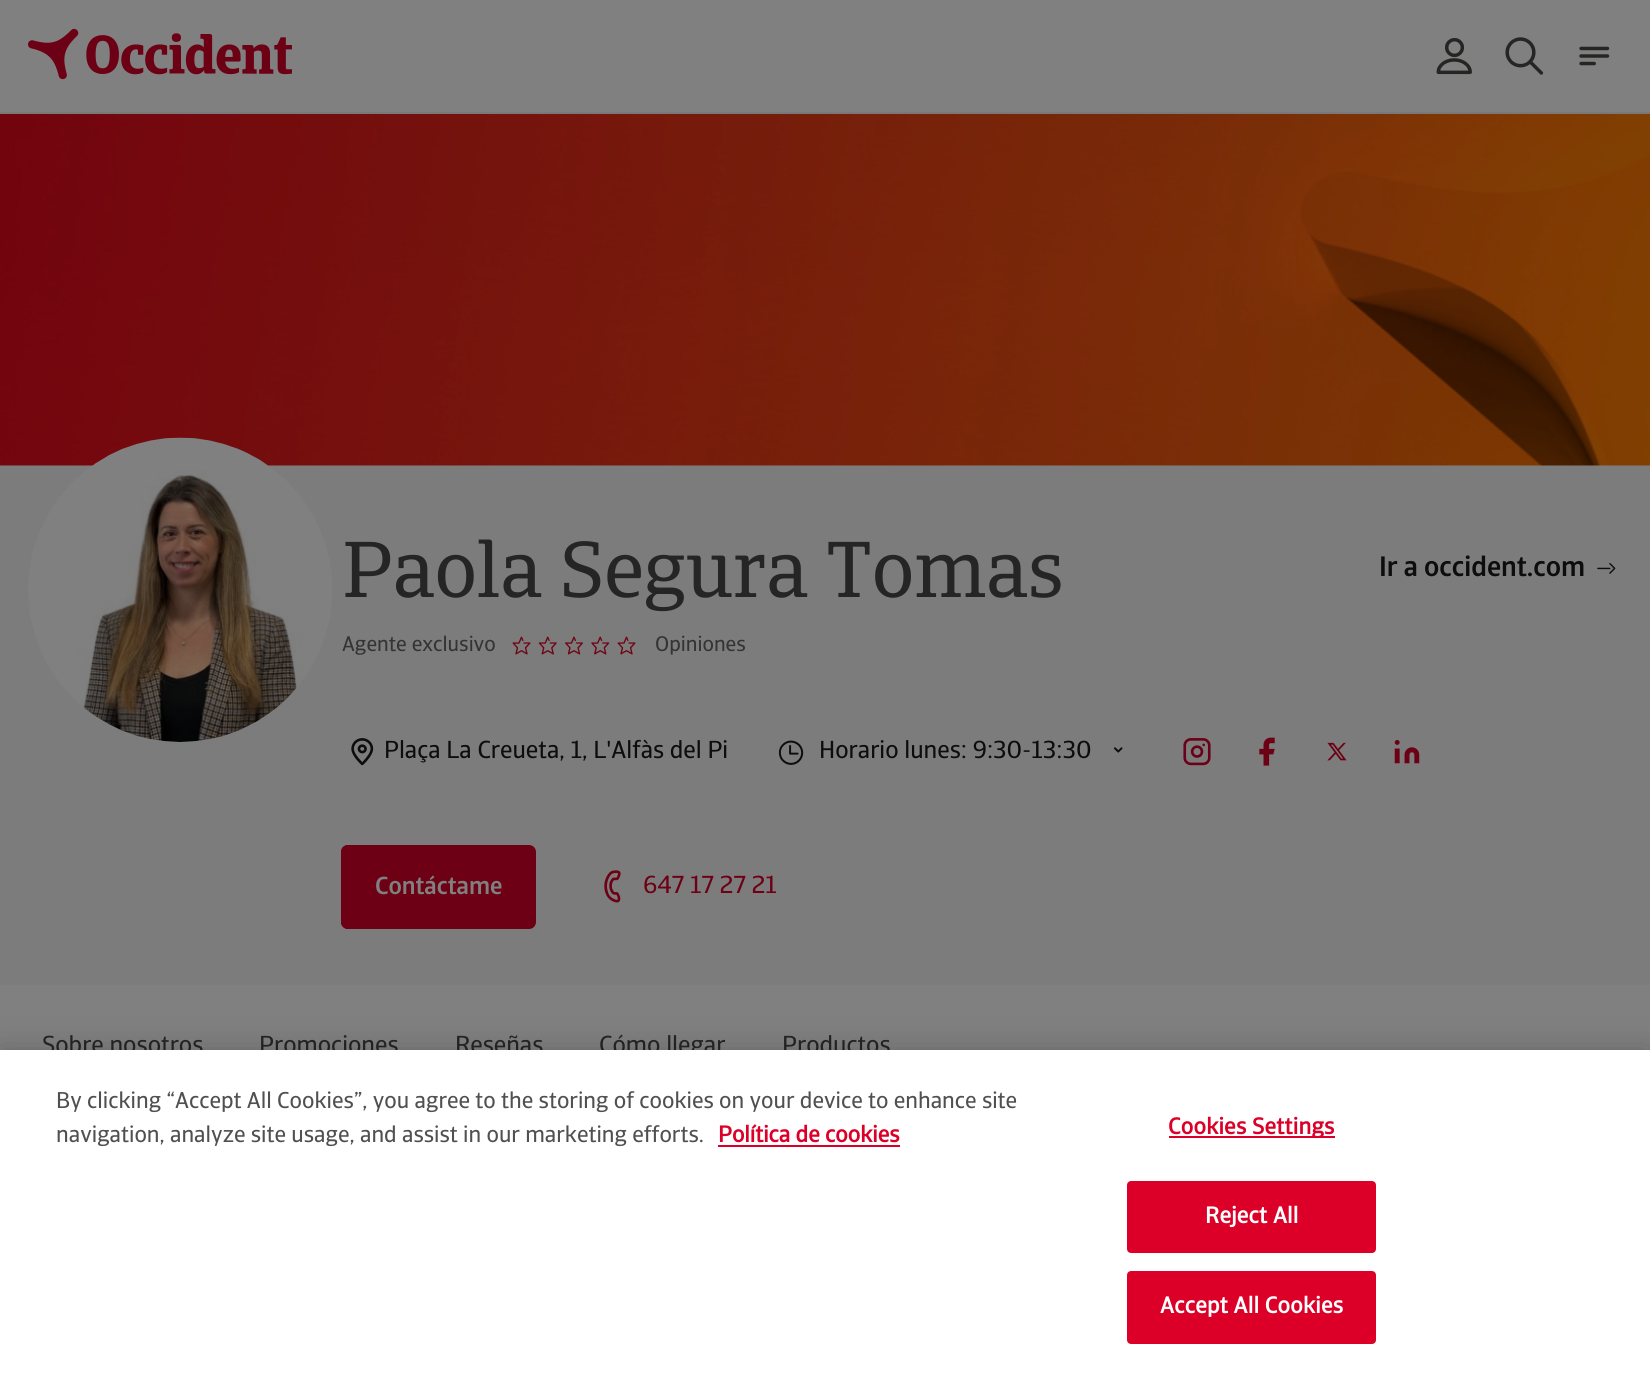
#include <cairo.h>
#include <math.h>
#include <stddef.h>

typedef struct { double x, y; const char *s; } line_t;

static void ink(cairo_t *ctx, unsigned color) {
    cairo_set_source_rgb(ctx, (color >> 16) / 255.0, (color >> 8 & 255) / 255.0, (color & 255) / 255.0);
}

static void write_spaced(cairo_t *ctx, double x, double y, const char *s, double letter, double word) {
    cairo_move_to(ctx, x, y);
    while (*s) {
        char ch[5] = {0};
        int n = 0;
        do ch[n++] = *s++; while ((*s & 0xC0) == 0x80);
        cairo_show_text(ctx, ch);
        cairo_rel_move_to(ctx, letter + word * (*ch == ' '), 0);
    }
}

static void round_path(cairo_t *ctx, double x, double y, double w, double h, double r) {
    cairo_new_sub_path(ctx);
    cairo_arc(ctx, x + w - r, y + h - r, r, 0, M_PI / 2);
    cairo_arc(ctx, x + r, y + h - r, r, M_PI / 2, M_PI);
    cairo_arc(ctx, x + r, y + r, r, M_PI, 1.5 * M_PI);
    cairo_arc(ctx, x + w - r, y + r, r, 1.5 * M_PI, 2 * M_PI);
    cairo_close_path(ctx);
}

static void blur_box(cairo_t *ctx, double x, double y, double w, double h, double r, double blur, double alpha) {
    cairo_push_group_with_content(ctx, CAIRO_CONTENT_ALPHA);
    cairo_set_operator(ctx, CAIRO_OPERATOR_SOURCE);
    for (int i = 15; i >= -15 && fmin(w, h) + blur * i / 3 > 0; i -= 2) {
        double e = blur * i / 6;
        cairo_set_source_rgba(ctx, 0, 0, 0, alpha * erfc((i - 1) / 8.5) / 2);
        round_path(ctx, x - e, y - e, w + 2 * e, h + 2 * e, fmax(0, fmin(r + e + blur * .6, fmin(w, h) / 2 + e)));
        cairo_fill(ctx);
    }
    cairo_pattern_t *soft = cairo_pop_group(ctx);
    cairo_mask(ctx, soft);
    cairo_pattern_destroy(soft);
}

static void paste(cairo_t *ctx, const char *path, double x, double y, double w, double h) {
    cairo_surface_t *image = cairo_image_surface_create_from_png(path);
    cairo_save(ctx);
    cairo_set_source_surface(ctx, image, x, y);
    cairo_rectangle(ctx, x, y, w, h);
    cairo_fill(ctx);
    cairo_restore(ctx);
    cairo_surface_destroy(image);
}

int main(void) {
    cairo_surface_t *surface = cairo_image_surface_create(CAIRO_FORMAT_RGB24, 1650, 1379);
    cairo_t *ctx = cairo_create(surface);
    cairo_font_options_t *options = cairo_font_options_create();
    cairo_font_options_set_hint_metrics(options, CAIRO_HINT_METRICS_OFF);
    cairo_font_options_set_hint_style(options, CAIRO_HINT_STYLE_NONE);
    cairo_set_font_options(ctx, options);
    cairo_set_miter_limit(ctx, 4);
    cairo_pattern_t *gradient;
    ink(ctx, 0x808080);
    cairo_paint(ctx);
    ink(ctx, 0x797979);
    cairo_rectangle(ctx, 0, 112, 1650, 2);
    cairo_fill(ctx);
    paste(ctx, "media/1.png", 28, 28, 264, 52);
    paste(ctx, "media/2.png", 1436, 38, 36, 37);
    paste(ctx, "media/3.png", 1505, 37, 39, 38);
    paste(ctx, "media/4.png", 1579, 46, 31, 20);
    paste(ctx, "media/5.png", 0, 114, 1650, 352);
    ink(ctx, 0x7C7C7C);
    cairo_rectangle(ctx, 0, 466, 1650, 519);
    cairo_fill(ctx);
    paste(ctx, "media/6.png", 28, 437, 304, 305);
    cairo_select_font_face(ctx, "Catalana", CAIRO_FONT_SLANT_NORMAL, CAIRO_FONT_WEIGHT_NORMAL);
    cairo_set_font_size(ctx, 78.75);
    ink(ctx, 0x252525);
    cairo_move_to(ctx, 342, 597);
    cairo_show_text(ctx, "Paola Segura Tomas");
    cairo_select_font_face(ctx, "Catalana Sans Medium", CAIRO_FONT_SLANT_NORMAL, CAIRO_FONT_WEIGHT_NORMAL);
    cairo_set_font_size(ctx, 28);
    ink(ctx, 0x0D0D0D);
    cairo_move_to(ctx, 1379, 576);
    cairo_show_text(ctx, "Ir a occident.com");
    paste(ctx, "media/7.png", 1597, 563, 19, 11);
    cairo_select_font_face(ctx, "Catalana Sans", CAIRO_FONT_SLANT_NORMAL, CAIRO_FONT_WEIGHT_NORMAL);
    cairo_set_font_size(ctx, 21);
    ink(ctx, 0x343434);
    cairo_move_to(ctx, 342, 651);
    cairo_show_text(ctx, "Agente exclusivo");
    paste(ctx, "media/8.png", 512, 636, 19, 19);
    paste(ctx, "media/9.png", 538, 636, 19, 19);
    paste(ctx, "media/10.png", 565, 636, 18, 19);
    paste(ctx, "media/11.png", 591, 636, 19, 19);
    paste(ctx, "media/8.png", 617, 636, 19, 19);
    cairo_move_to(ctx, 655, 651);
    cairo_show_text(ctx, "Opiniones");
    paste(ctx, "media/12.png", 351, 738, 23, 28);
    cairo_set_font_size(ctx, 24.5);
    ink(ctx, 0x0D0D0D);
    cairo_move_to(ctx, 384, 758);
    cairo_show_text(ctx, "Plaça La Creueta, 1, L'Alfàs del Pi");
    paste(ctx, "media/13.png", 778, 740, 26, 25);
    cairo_move_to(ctx, 819, 758);
    cairo_show_text(ctx, "Horario lunes: 9:30-13:30");
    paste(ctx, "media/14.png", 1114, 747, 9, 6);
    paste(ctx, "media/15.png", 1183, 738, 28, 28);
    paste(ctx, "media/16.png", 1259, 737, 16, 29);
    paste(ctx, "media/17.png", 1327, 742, 20, 19);
    paste(ctx, "media/18.png", 1394, 740, 26, 24);
    ink(ctx, 0x6D0014);
    round_path(ctx, 341, 845, 195, 84, 7);
    cairo_fill(ctx);
    gradient = cairo_pattern_create_linear(540, 903, 337, 872);
    cairo_pattern_add_color_stop_rgba(gradient, 0.04, 0.427, 0, 0.078, 0);
    cairo_pattern_add_color_stop_rgba(gradient, 0.85, 0.427, 0, 0.078, 1);
    cairo_set_source(ctx, gradient);
    cairo_pattern_destroy(gradient);
    round_path(ctx, 341, 845, 195, 84, 7);
    cairo_fill(ctx);
    cairo_select_font_face(ctx, "Catalana Sans Medium", CAIRO_FONT_SLANT_NORMAL, CAIRO_FONT_WEIGHT_NORMAL);
    ink(ctx, 0x808080);
    cairo_move_to(ctx, 375, 894);
    cairo_show_text(ctx, "Contáctame");
    paste(ctx, "media/19.png", 604, 870, 17, 33);
    cairo_select_font_face(ctx, "Catalana Sans", CAIRO_FONT_SLANT_NORMAL, CAIRO_FONT_WEIGHT_NORMAL);
    ink(ctx, 0x6D0014);
    cairo_move_to(ctx, 643, 893);
    cairo_show_text(ctx, "647 17 27 21");
    ink(ctx, 0x252525);
    {
        static const line_t items[] = {
            {42, 1053, "Sobre nosotros"},
            {259, 1053, "Promociones"},
            {455, 1053, "Reseñas"},
            {599, 1053, "Cómo llegar"},
            {782, 1053, "Productos"},
        };
        for (size_t i = 0; i < sizeof items / sizeof *items; i++) {
            cairo_move_to(ctx, items[i].x, items[i].y);
            cairo_show_text(ctx, items[i].s);
        }
    }
    ink(ctx, 0x000000);
    blur_box(ctx, 0, 1050, 1650, 329, 0, 16, 0.2);
    ink(ctx, 0xFFFFFF);
    cairo_rectangle(ctx, 0, 1050, 1650, 329);
    cairo_fill(ctx);
    cairo_set_font_size(ctx, 22.75);
    ink(ctx, 0x505050);
    cairo_move_to(ctx, 56, 1108);
    cairo_show_text(ctx, "By clicking “Accept All Cookies”, you agree to the storing of cookies on your device to enhance site");
    cairo_move_to(ctx, 56, 1142);
    cairo_show_text(ctx, "navigation, analyze site usage, and assist in our marketing efforts.");
    cairo_select_font_face(ctx, "Catalana Sans", CAIRO_FONT_SLANT_NORMAL, CAIRO_FONT_WEIGHT_BOLD);
    ink(ctx, 0xDC0028);
    cairo_move_to(ctx, 718, 1142);
    cairo_show_text(ctx, "Política de cookies");
    cairo_rectangle(ctx, 718, 1145, 182, 2);
    cairo_fill(ctx);
    cairo_rectangle(ctx, 1169, 1136, 166, 2);
    cairo_fill(ctx);
    write_spaced(ctx, 1168, 1134, "Cookies Settings", 0.25, 0);
    round_path(ctx, 1128, 1182, 247, 70, 3);
    cairo_fill_preserve(ctx);
    cairo_stroke(ctx);
    ink(ctx, 0xFFFFFF);
    write_spaced(ctx, 1205, 1223, "Reject All", 0.25, 0);
    ink(ctx, 0xDC0028);
    round_path(ctx, 1128, 1272, 247, 71, 3);
    cairo_fill_preserve(ctx);
    cairo_stroke(ctx);
    ink(ctx, 0xFFFFFF);
    write_spaced(ctx, 1160, 1313, "Accept All Cookies", 0.25, 0);
    cairo_surface_write_to_png(surface, "image.png");
    cairo_font_options_destroy(options);
    cairo_destroy(ctx);
    cairo_surface_destroy(surface);
    return 0;
}
